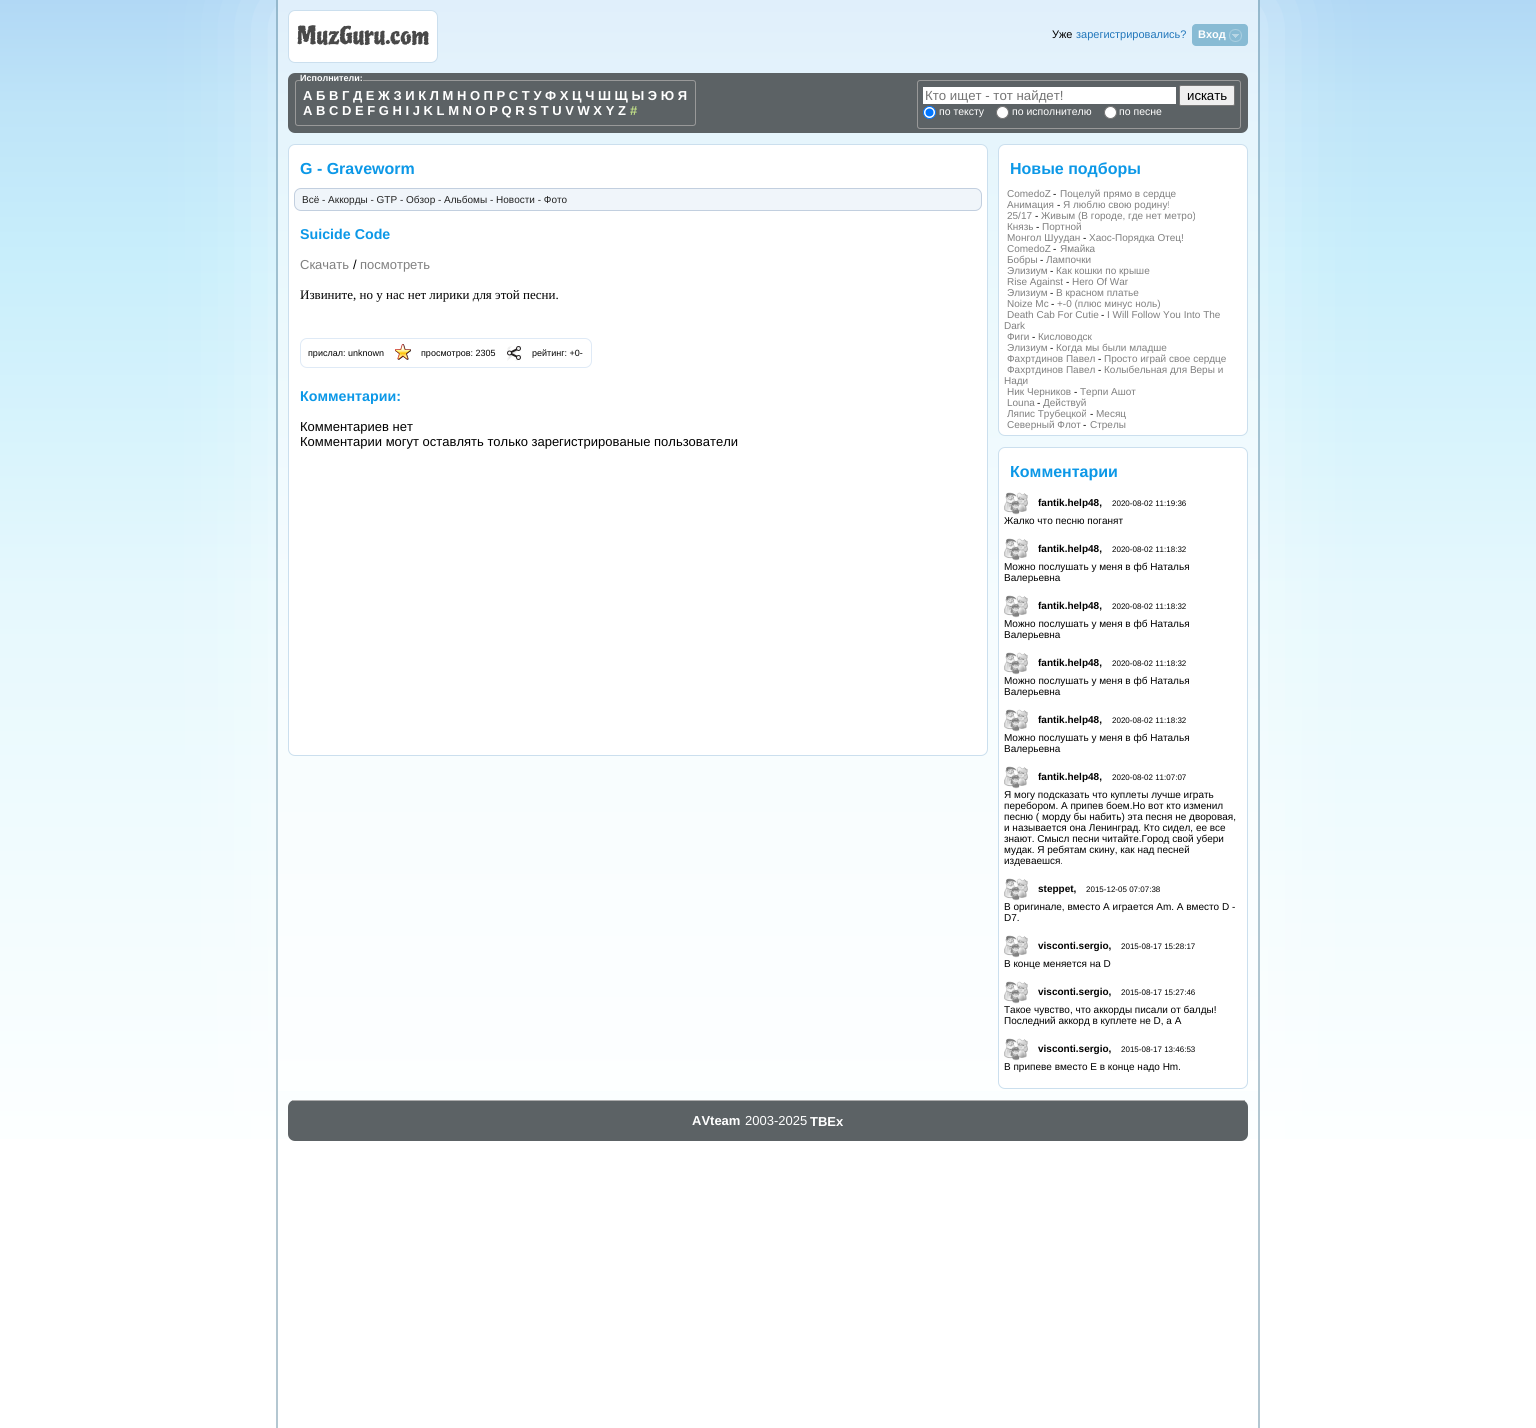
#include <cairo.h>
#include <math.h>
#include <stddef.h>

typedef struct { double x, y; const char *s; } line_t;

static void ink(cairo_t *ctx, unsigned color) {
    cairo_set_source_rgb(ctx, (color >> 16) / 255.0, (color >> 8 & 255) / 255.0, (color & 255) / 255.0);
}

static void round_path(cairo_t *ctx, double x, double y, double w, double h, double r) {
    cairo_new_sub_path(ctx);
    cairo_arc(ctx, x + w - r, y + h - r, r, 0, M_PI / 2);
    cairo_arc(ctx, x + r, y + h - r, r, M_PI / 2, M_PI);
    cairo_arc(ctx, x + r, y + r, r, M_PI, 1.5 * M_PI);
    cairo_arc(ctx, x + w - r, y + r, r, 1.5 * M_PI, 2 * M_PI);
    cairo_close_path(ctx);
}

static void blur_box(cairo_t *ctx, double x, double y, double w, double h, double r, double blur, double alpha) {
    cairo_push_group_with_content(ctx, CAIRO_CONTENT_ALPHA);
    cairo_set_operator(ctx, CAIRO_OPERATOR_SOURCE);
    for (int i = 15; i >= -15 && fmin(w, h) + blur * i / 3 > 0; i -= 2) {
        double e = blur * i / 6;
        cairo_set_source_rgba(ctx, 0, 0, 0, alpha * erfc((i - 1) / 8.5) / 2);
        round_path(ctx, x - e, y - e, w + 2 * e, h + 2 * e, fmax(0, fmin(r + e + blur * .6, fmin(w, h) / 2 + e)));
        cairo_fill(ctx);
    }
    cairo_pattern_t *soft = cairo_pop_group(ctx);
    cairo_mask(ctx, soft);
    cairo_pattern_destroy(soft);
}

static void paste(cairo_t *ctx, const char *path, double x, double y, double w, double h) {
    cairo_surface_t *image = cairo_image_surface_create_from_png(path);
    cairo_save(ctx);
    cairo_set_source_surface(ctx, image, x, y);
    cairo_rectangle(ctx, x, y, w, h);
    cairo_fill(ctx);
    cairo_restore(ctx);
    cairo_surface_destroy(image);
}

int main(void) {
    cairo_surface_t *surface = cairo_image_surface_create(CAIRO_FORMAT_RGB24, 1536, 1428);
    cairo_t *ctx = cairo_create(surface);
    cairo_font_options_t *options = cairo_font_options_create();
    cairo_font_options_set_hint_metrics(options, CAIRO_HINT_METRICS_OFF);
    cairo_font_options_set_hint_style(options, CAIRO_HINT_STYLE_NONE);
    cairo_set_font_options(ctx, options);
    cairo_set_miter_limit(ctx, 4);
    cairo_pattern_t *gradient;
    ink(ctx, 0xFFFFFF);
    cairo_paint(ctx);
    ink(ctx, 0xB4C7D1);
    cairo_rectangle(ctx, 276, 1151, 2, 277);
    cairo_fill(ctx);
    cairo_rectangle(ctx, 1258, 1151, 2, 277);
    cairo_fill(ctx);
    gradient = cairo_pattern_create_linear(768, 0, 768, 1151);
    cairo_pattern_add_color_stop_rgba(gradient, 0, 0.694, 0.847, 0.961, 1);
    cairo_pattern_add_color_stop_rgba(gradient, 0.09, 0.745, 0.894, 0.973, 1);
    cairo_pattern_add_color_stop_rgba(gradient, 0.22, 0.784, 0.933, 0.984, 1);
    cairo_pattern_add_color_stop_rgba(gradient, 0.52, 0.902, 0.973, 0.992, 1);
    cairo_pattern_add_color_stop_rgba(gradient, 1, 0.992, 1, 1, 1);
    cairo_set_source(ctx, gradient);
    cairo_pattern_destroy(gradient);
    cairo_rectangle(ctx, 0, 0, 1536, 1139);
    cairo_fill(ctx);
    gradient = cairo_pattern_create_linear(768, 0, 768, 1151);
    cairo_pattern_add_color_stop_rgba(gradient, 0, 0.584, 0.722, 0.804, 1);
    cairo_pattern_add_color_stop_rgba(gradient, 0.09, 0.604, 0.737, 0.812, 1);
    cairo_pattern_add_color_stop_rgba(gradient, 0.22, 0.62, 0.753, 0.816, 1);
    cairo_pattern_add_color_stop_rgba(gradient, 0.52, 0.667, 0.769, 0.82, 1);
    cairo_pattern_add_color_stop_rgba(gradient, 1, 0.702, 0.78, 0.82, 1);
    cairo_set_source(ctx, gradient);
    cairo_pattern_destroy(gradient);
    cairo_rectangle(ctx, 276, 0, 2, 1151);
    cairo_fill(ctx);
    cairo_rectangle(ctx, 1258, 0, 2, 1151);
    cairo_fill(ctx);
    gradient = cairo_pattern_create_linear(768, 0, 768, 1151);
    cairo_pattern_add_color_stop_rgba(gradient, 0, 0.878, 0.937, 0.984, 1);
    cairo_pattern_add_color_stop_rgba(gradient, 0.09, 0.898, 0.957, 0.988, 1);
    cairo_pattern_add_color_stop_rgba(gradient, 0.22, 0.914, 0.973, 0.992, 1);
    cairo_pattern_add_color_stop_rgba(gradient, 0.52, 0.961, 0.988, 0.996, 1);
    cairo_pattern_add_color_stop_rgba(gradient, 1, 0.996, 1, 1, 1);
    cairo_set_source(ctx, gradient);
    cairo_pattern_destroy(gradient);
    cairo_rectangle(ctx, 278, 0, 980, 1091);
    cairo_fill(ctx);
    cairo_save(ctx);
    cairo_set_fill_rule(ctx, CAIRO_FILL_RULE_EVEN_ODD);
    cairo_new_path(ctx);
    cairo_move_to(ctx, 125, 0);
    cairo_line_to(ctx, 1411, 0);
    cairo_line_to(ctx, 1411, 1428);
    cairo_line_to(ctx, 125, 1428);
    cairo_close_path(ctx);
    cairo_move_to(ctx, 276, 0);
    cairo_line_to(ctx, 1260, 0);
    cairo_line_to(ctx, 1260, 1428);
    cairo_line_to(ctx, 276, 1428);
    cairo_close_path(ctx);
    cairo_clip(ctx);
    ink(ctx, 0xFFFFFF);
    blur_box(ctx, 276, 0, 984, 1428, 0, 50, 0.6);
    cairo_restore(ctx);
    ink(ctx, 0xFFFFFF);
    round_path(ctx, 288.5, 10.5, 149, 52, 6.5);
    cairo_fill_preserve(ctx);
    ink(ctx, 0xCBDFEE);
    cairo_set_line_width(ctx, 1);
    cairo_stroke(ctx);
    cairo_select_font_face(ctx, "Piedra", CAIRO_FONT_SLANT_NORMAL, CAIRO_FONT_WEIGHT_NORMAL);
    cairo_set_font_size(ctx, 24);
    ink(ctx, 0x494949);
    cairo_move_to(ctx, 297, 44);
    cairo_show_text(ctx, "MuzGuru.com");
    cairo_select_font_face(ctx, "Liberation Sans", CAIRO_FONT_SLANT_NORMAL, CAIRO_FONT_WEIGHT_NORMAL);
    cairo_set_font_size(ctx, 11);
    ink(ctx, 0x000000);
    cairo_move_to(ctx, 1052, 38);
    cairo_show_text(ctx, "Уже");
    ink(ctx, 0x2277BB);
    cairo_move_to(ctx, 1076, 38);
    cairo_show_text(ctx, "зарегистрировались?");
    ink(ctx, 0x88BBD4);
    round_path(ctx, 1192, 24, 56, 22, 4);
    cairo_fill(ctx);
    cairo_select_font_face(ctx, "Liberation Sans", CAIRO_FONT_SLANT_NORMAL, CAIRO_FONT_WEIGHT_BOLD);
    ink(ctx, 0xFFFFFF);
    cairo_move_to(ctx, 1198, 38);
    cairo_show_text(ctx, "Вход");
    paste(ctx, "media/1.png", 1229, 29, 13, 13);
    ink(ctx, 0x5C6265);
    round_path(ctx, 288, 73, 960, 60, 7);
    cairo_fill(ctx);
    round_path(ctx, 295.5, 80.5, 400, 45, 2.5);
    ink(ctx, 0x999999);
    cairo_stroke(ctx);
    ink(ctx, 0x5C6265);
    cairo_rectangle(ctx, 300, 80, 63, 1);
    cairo_fill(ctx);
    cairo_set_font_size(ctx, 9);
    ink(ctx, 0xFFFFFF);
    cairo_move_to(ctx, 300, 81);
    cairo_show_text(ctx, "Исполнители:");
    cairo_set_font_size(ctx, 13);
    cairo_move_to(ctx, 303, 100);
    cairo_show_text(ctx, "А Б В Г Д Е Ж З И К Л М Н О П Р С Т У Ф Х Ц Ч Ш Щ Ы Э Ю Я");
    cairo_move_to(ctx, 303, 115);
    cairo_show_text(ctx, "A B C D E F G H I J K L M N O P Q R S T U V W X Y Z");
    ink(ctx, 0xC1E088);
    cairo_move_to(ctx, 630, 115);
    cairo_show_text(ctx, "#");
    round_path(ctx, 917.5, 80.5, 323, 48, 2.5);
    ink(ctx, 0x999999);
    cairo_stroke(ctx);
    ink(ctx, 0xFFFFFF);
    cairo_rectangle(ctx, 923, 87, 253, 17);
    cairo_fill(ctx);
    cairo_select_font_face(ctx, "Liberation Sans", CAIRO_FONT_SLANT_NORMAL, CAIRO_FONT_WEIGHT_NORMAL);
    cairo_set_font_size(ctx, 13.25);
    ink(ctx, 0x757575);
    cairo_move_to(ctx, 925, 100);
    cairo_show_text(ctx, "Кто ищет - тот найдет!");
    ink(ctx, 0xEFEFEF);
    round_path(ctx, 1179.5, 85.5, 55, 20, 1.5);
    cairo_fill_preserve(ctx);
    ink(ctx, 0x767676);
    cairo_stroke(ctx);
    ink(ctx, 0x000000);
    cairo_move_to(ctx, 1187, 100);
    cairo_show_text(ctx, "искать");
    ink(ctx, 0xFFFFFF);
    cairo_new_path(ctx);
    cairo_arc(ctx, 929.5, 112.5, 6, 0, 2 * M_PI);
    cairo_fill_preserve(ctx);
    ink(ctx, 0x0075FF);
    cairo_stroke(ctx);
    cairo_arc(ctx, 929.5, 112.5, 4, 0, 2 * M_PI);
    cairo_fill(ctx);
    cairo_set_font_size(ctx, 10.5);
    ink(ctx, 0xFFFFFF);
    cairo_move_to(ctx, 939, 115);
    cairo_show_text(ctx, "по тексту");
    cairo_new_path(ctx);
    cairo_arc(ctx, 1002.5, 112.5, 6, 0, 2 * M_PI);
    cairo_fill_preserve(ctx);
    ink(ctx, 0x767676);
    cairo_stroke(ctx);
    ink(ctx, 0xFFFFFF);
    cairo_move_to(ctx, 1012, 115);
    cairo_show_text(ctx, "по исполнителю");
    cairo_new_path(ctx);
    cairo_arc(ctx, 1110.5, 112.5, 6, 0, 2 * M_PI);
    cairo_fill_preserve(ctx);
    ink(ctx, 0x767676);
    cairo_stroke(ctx);
    ink(ctx, 0xFFFFFF);
    cairo_move_to(ctx, 1119, 115);
    cairo_show_text(ctx, "по песне");
    round_path(ctx, 288.5, 144.5, 699, 611, 6.5);
    cairo_fill_preserve(ctx);
    ink(ctx, 0xCBDFEE);
    cairo_stroke(ctx);
    cairo_select_font_face(ctx, "Liberation Sans", CAIRO_FONT_SLANT_NORMAL, CAIRO_FONT_WEIGHT_BOLD);
    cairo_set_font_size(ctx, 16);
    ink(ctx, 0x0C98E7);
    cairo_move_to(ctx, 300, 174);
    cairo_show_text(ctx, "G - Graveworm");
    ink(ctx, 0xF0F5FA);
    round_path(ctx, 294.5, 188.5, 687, 22, 6.5);
    cairo_fill_preserve(ctx);
    ink(ctx, 0xC2CFDF);
    cairo_stroke(ctx);
    cairo_select_font_face(ctx, "Liberation Sans", CAIRO_FONT_SLANT_NORMAL, CAIRO_FONT_WEIGHT_NORMAL);
    cairo_set_font_size(ctx, 10);
    ink(ctx, 0x222222);
    cairo_move_to(ctx, 302, 203);
    cairo_show_text(ctx, "Всё - Аккорды - GTP - Обзор - Альбомы - Новости - Фото");
    cairo_select_font_face(ctx, "Liberation Sans", CAIRO_FONT_SLANT_NORMAL, CAIRO_FONT_WEIGHT_BOLD);
    cairo_set_font_size(ctx, 14.25);
    ink(ctx, 0x0C98E7);
    cairo_move_to(ctx, 300, 239);
    cairo_show_text(ctx, "Suicide Code");
    cairo_select_font_face(ctx, "Liberation Sans", CAIRO_FONT_SLANT_NORMAL, CAIRO_FONT_WEIGHT_NORMAL);
    cairo_set_font_size(ctx, 13);
    ink(ctx, 0x808080);
    cairo_move_to(ctx, 300, 269);
    cairo_show_text(ctx, "Скачать");
    ink(ctx, 0x000000);
    cairo_move_to(ctx, 353, 269);
    cairo_show_text(ctx, "/");
    ink(ctx, 0x808080);
    cairo_move_to(ctx, 360, 269);
    cairo_show_text(ctx, "посмотреть");
    cairo_select_font_face(ctx, "Liberation Serif", CAIRO_FONT_SLANT_NORMAL, CAIRO_FONT_WEIGHT_NORMAL);
    ink(ctx, 0x000000);
    cairo_move_to(ctx, 300, 299);
    cairo_show_text(ctx, "Извините, но у нас нет лирики для этой песни.");
    round_path(ctx, 300.5, 338.5, 291, 29, 6.5);
    ink(ctx, 0xDFEAF6);
    cairo_stroke(ctx);
    cairo_select_font_face(ctx, "Liberation Sans", CAIRO_FONT_SLANT_NORMAL, CAIRO_FONT_WEIGHT_NORMAL);
    cairo_set_font_size(ctx, 9);
    ink(ctx, 0x000000);
    cairo_move_to(ctx, 308, 356);
    cairo_show_text(ctx, "прислал: unknown");
    paste(ctx, "media/2.png", 395, 344, 16, 16);
    cairo_move_to(ctx, 421, 356);
    cairo_show_text(ctx, "просмотров: 2305");
    paste(ctx, "media/3.png", 507, 346, 15, 15);
    cairo_move_to(ctx, 532, 356);
    cairo_show_text(ctx, "рейтинг: +0-");
    cairo_select_font_face(ctx, "Liberation Sans", CAIRO_FONT_SLANT_NORMAL, CAIRO_FONT_WEIGHT_BOLD);
    cairo_set_font_size(ctx, 14.25);
    ink(ctx, 0x0C98E7);
    cairo_move_to(ctx, 300, 401);
    cairo_show_text(ctx, "Комментарии:");
    cairo_select_font_face(ctx, "Liberation Sans", CAIRO_FONT_SLANT_NORMAL, CAIRO_FONT_WEIGHT_NORMAL);
    cairo_set_font_size(ctx, 13);
    ink(ctx, 0x000000);
    cairo_move_to(ctx, 300, 431);
    cairo_show_text(ctx, "Комментариев нет");
    cairo_move_to(ctx, 300, 446);
    cairo_show_text(ctx, "Комментарии могут оставлять только зарегистрированые пользователи");
    ink(ctx, 0xFFFFFF);
    round_path(ctx, 998.5, 144.5, 249, 291, 6.5);
    cairo_fill_preserve(ctx);
    ink(ctx, 0xCBDFEE);
    cairo_stroke(ctx);
    cairo_select_font_face(ctx, "Liberation Sans", CAIRO_FONT_SLANT_NORMAL, CAIRO_FONT_WEIGHT_BOLD);
    cairo_set_font_size(ctx, 16);
    ink(ctx, 0x0C98E7);
    cairo_move_to(ctx, 1010, 174);
    cairo_show_text(ctx, "Новые подборы");
    cairo_select_font_face(ctx, "Liberation Sans", CAIRO_FONT_SLANT_NORMAL, CAIRO_FONT_WEIGHT_NORMAL);
    cairo_set_font_size(ctx, 10);
    ink(ctx, 0x808080);
    cairo_move_to(ctx, 1007, 197);
    cairo_show_text(ctx, "ComedoZ");
    ink(ctx, 0x000000);
    cairo_move_to(ctx, 1053, 197);
    cairo_show_text(ctx, "-");
    ink(ctx, 0x808080);
    cairo_move_to(ctx, 1060, 197);
    cairo_show_text(ctx, "Поцелуй прямо в сердце");
    cairo_move_to(ctx, 1007, 208);
    cairo_show_text(ctx, "Анимация");
    ink(ctx, 0x000000);
    cairo_move_to(ctx, 1057, 208);
    cairo_show_text(ctx, "-");
    ink(ctx, 0x808080);
    cairo_move_to(ctx, 1063, 208);
    cairo_show_text(ctx, "Я люблю свою родину!");
    cairo_move_to(ctx, 1007, 219);
    cairo_show_text(ctx, "25/17");
    ink(ctx, 0x000000);
    cairo_move_to(ctx, 1035, 219);
    cairo_show_text(ctx, "-");
    ink(ctx, 0x808080);
    cairo_move_to(ctx, 1041, 219);
    cairo_show_text(ctx, "Живым (В городе, где нет метро)");
    cairo_move_to(ctx, 1007, 230);
    cairo_show_text(ctx, "Князь");
    ink(ctx, 0x000000);
    cairo_move_to(ctx, 1036, 230);
    cairo_show_text(ctx, "-");
    ink(ctx, 0x808080);
    cairo_move_to(ctx, 1042, 230);
    cairo_show_text(ctx, "Портной");
    cairo_move_to(ctx, 1007, 241);
    cairo_show_text(ctx, "Монгол Шуудан");
    ink(ctx, 0x000000);
    cairo_move_to(ctx, 1083, 241);
    cairo_show_text(ctx, "-");
    ink(ctx, 0x808080);
    cairo_move_to(ctx, 1089, 241);
    cairo_show_text(ctx, "Хаос-Порядка Отец!");
    cairo_move_to(ctx, 1007, 252);
    cairo_show_text(ctx, "ComedoZ");
    ink(ctx, 0x000000);
    cairo_move_to(ctx, 1053, 252);
    cairo_show_text(ctx, "-");
    ink(ctx, 0x808080);
    cairo_move_to(ctx, 1060, 252);
    cairo_show_text(ctx, "Ямайка");
    cairo_move_to(ctx, 1007, 263);
    cairo_show_text(ctx, "Бобры");
    ink(ctx, 0x000000);
    cairo_move_to(ctx, 1040, 263);
    cairo_show_text(ctx, "-");
    ink(ctx, 0x808080);
    cairo_move_to(ctx, 1046, 263);
    cairo_show_text(ctx, "Лампочки");
    cairo_move_to(ctx, 1007, 274);
    cairo_show_text(ctx, "Элизиум");
    ink(ctx, 0x000000);
    cairo_move_to(ctx, 1050, 274);
    cairo_show_text(ctx, "-");
    ink(ctx, 0x808080);
    cairo_move_to(ctx, 1056, 274);
    cairo_show_text(ctx, "Как кошки по крыше");
    cairo_move_to(ctx, 1007, 285);
    cairo_show_text(ctx, "Rise Against");
    ink(ctx, 0x000000);
    cairo_move_to(ctx, 1066, 285);
    cairo_show_text(ctx, "-");
    ink(ctx, 0x808080);
    cairo_move_to(ctx, 1072, 285);
    cairo_show_text(ctx, "Hero Of War");
    cairo_move_to(ctx, 1007, 296);
    cairo_show_text(ctx, "Элизиум");
    ink(ctx, 0x000000);
    cairo_move_to(ctx, 1050, 296);
    cairo_show_text(ctx, "-");
    ink(ctx, 0x808080);
    cairo_move_to(ctx, 1056, 296);
    cairo_show_text(ctx, "В красном платье");
    cairo_move_to(ctx, 1007, 307);
    cairo_show_text(ctx, "Noize Mc");
    ink(ctx, 0x000000);
    cairo_move_to(ctx, 1051, 307);
    cairo_show_text(ctx, "-");
    ink(ctx, 0x808080);
    cairo_move_to(ctx, 1057, 307);
    cairo_show_text(ctx, "+-0 (плюс минус ноль)");
    cairo_move_to(ctx, 1007, 318);
    cairo_show_text(ctx, "Death Cab For Cutie");
    ink(ctx, 0x000000);
    cairo_move_to(ctx, 1101, 318);
    cairo_show_text(ctx, "-");
    ink(ctx, 0x808080);
    {
        static const line_t items[] = {
            {1107, 318, "I Will Follow You Into The"},
            {1004, 329, "Dark"},
            {1007, 340, "Фиги"},
        };
        for (size_t i = 0; i < sizeof items / sizeof *items; i++) {
            cairo_move_to(ctx, items[i].x, items[i].y);
            cairo_show_text(ctx, items[i].s);
        }
    }
    ink(ctx, 0x000000);
    cairo_move_to(ctx, 1032, 340);
    cairo_show_text(ctx, "-");
    ink(ctx, 0x808080);
    cairo_move_to(ctx, 1038, 340);
    cairo_show_text(ctx, "Кисловодск");
    cairo_move_to(ctx, 1007, 351);
    cairo_show_text(ctx, "Элизиум");
    ink(ctx, 0x000000);
    cairo_move_to(ctx, 1050, 351);
    cairo_show_text(ctx, "-");
    ink(ctx, 0x808080);
    cairo_move_to(ctx, 1056, 351);
    cairo_show_text(ctx, "Когда мы были младше");
    cairo_move_to(ctx, 1007, 362);
    cairo_show_text(ctx, "Фахртдинов Павел");
    ink(ctx, 0x000000);
    cairo_move_to(ctx, 1098, 362);
    cairo_show_text(ctx, "-");
    ink(ctx, 0x808080);
    cairo_move_to(ctx, 1104, 362);
    cairo_show_text(ctx, "Просто играй свое сердце");
    cairo_move_to(ctx, 1007, 373);
    cairo_show_text(ctx, "Фахртдинов Павел");
    ink(ctx, 0x000000);
    cairo_move_to(ctx, 1098, 373);
    cairo_show_text(ctx, "-");
    ink(ctx, 0x808080);
    {
        static const line_t items[] = {
            {1104, 373, "Колыбельная для Веры и"},
            {1004, 384, "Нади"},
            {1007, 395, "Ник Черников"},
        };
        for (size_t i = 0; i < sizeof items / sizeof *items; i++) {
            cairo_move_to(ctx, items[i].x, items[i].y);
            cairo_show_text(ctx, items[i].s);
        }
    }
    ink(ctx, 0x000000);
    cairo_move_to(ctx, 1074, 395);
    cairo_show_text(ctx, "-");
    ink(ctx, 0x808080);
    cairo_move_to(ctx, 1080, 395);
    cairo_show_text(ctx, "Терпи Ашот");
    cairo_move_to(ctx, 1007, 406);
    cairo_show_text(ctx, "Louna");
    ink(ctx, 0x000000);
    cairo_move_to(ctx, 1037, 406);
    cairo_show_text(ctx, "-");
    ink(ctx, 0x808080);
    cairo_move_to(ctx, 1043, 406);
    cairo_show_text(ctx, "Действуй");
    cairo_move_to(ctx, 1007, 417);
    cairo_show_text(ctx, "Ляпис Трубецкой");
    ink(ctx, 0x000000);
    cairo_move_to(ctx, 1090, 417);
    cairo_show_text(ctx, "-");
    ink(ctx, 0x808080);
    cairo_move_to(ctx, 1096, 417);
    cairo_show_text(ctx, "Месяц");
    cairo_move_to(ctx, 1007, 428);
    cairo_show_text(ctx, "Северный Флот");
    ink(ctx, 0x000000);
    cairo_move_to(ctx, 1083, 428);
    cairo_show_text(ctx, "-");
    ink(ctx, 0x808080);
    cairo_move_to(ctx, 1090, 428);
    cairo_show_text(ctx, "Стрелы");
    ink(ctx, 0xFFFFFF);
    round_path(ctx, 998.5, 447.5, 249, 641, 6.5);
    cairo_fill_preserve(ctx);
    ink(ctx, 0xCBDFEE);
    cairo_stroke(ctx);
    cairo_select_font_face(ctx, "Liberation Sans", CAIRO_FONT_SLANT_NORMAL, CAIRO_FONT_WEIGHT_BOLD);
    cairo_set_font_size(ctx, 16);
    ink(ctx, 0x0C98E7);
    cairo_move_to(ctx, 1010, 477);
    cairo_show_text(ctx, "Комментарии");
    paste(ctx, "media/4.png", 1004, 492, 24, 23);
    cairo_set_font_size(ctx, 10);
    ink(ctx, 0x000000);
    cairo_move_to(ctx, 1038, 506);
    cairo_show_text(ctx, "fantik.help48,");
    cairo_select_font_face(ctx, "Liberation Sans", CAIRO_FONT_SLANT_NORMAL, CAIRO_FONT_WEIGHT_NORMAL);
    cairo_set_font_size(ctx, 8);
    cairo_move_to(ctx, 1112, 506);
    cairo_show_text(ctx, "2020-08-02 11:19:36");
    cairo_set_font_size(ctx, 10);
    cairo_move_to(ctx, 1004, 524);
    cairo_show_text(ctx, "Жалко что песню поганят");
    paste(ctx, "media/4.png", 1004, 538, 24, 23);
    cairo_select_font_face(ctx, "Liberation Sans", CAIRO_FONT_SLANT_NORMAL, CAIRO_FONT_WEIGHT_BOLD);
    cairo_move_to(ctx, 1038, 552);
    cairo_show_text(ctx, "fantik.help48,");
    cairo_select_font_face(ctx, "Liberation Sans", CAIRO_FONT_SLANT_NORMAL, CAIRO_FONT_WEIGHT_NORMAL);
    cairo_set_font_size(ctx, 8);
    cairo_move_to(ctx, 1112, 552);
    cairo_show_text(ctx, "2020-08-02 11:18:32");
    cairo_set_font_size(ctx, 10);
    cairo_move_to(ctx, 1004, 570);
    cairo_show_text(ctx, "Можно послушать у меня в фб Наталья");
    cairo_move_to(ctx, 1004, 581);
    cairo_show_text(ctx, "Валерьевна");
    paste(ctx, "media/4.png", 1004, 595, 24, 23);
    cairo_select_font_face(ctx, "Liberation Sans", CAIRO_FONT_SLANT_NORMAL, CAIRO_FONT_WEIGHT_BOLD);
    cairo_move_to(ctx, 1038, 609);
    cairo_show_text(ctx, "fantik.help48,");
    cairo_select_font_face(ctx, "Liberation Sans", CAIRO_FONT_SLANT_NORMAL, CAIRO_FONT_WEIGHT_NORMAL);
    cairo_set_font_size(ctx, 8);
    cairo_move_to(ctx, 1112, 609);
    cairo_show_text(ctx, "2020-08-02 11:18:32");
    cairo_set_font_size(ctx, 10);
    cairo_move_to(ctx, 1004, 627);
    cairo_show_text(ctx, "Можно послушать у меня в фб Наталья");
    cairo_move_to(ctx, 1004, 638);
    cairo_show_text(ctx, "Валерьевна");
    paste(ctx, "media/4.png", 1004, 652, 24, 23);
    cairo_select_font_face(ctx, "Liberation Sans", CAIRO_FONT_SLANT_NORMAL, CAIRO_FONT_WEIGHT_BOLD);
    cairo_move_to(ctx, 1038, 666);
    cairo_show_text(ctx, "fantik.help48,");
    cairo_select_font_face(ctx, "Liberation Sans", CAIRO_FONT_SLANT_NORMAL, CAIRO_FONT_WEIGHT_NORMAL);
    cairo_set_font_size(ctx, 8);
    cairo_move_to(ctx, 1112, 666);
    cairo_show_text(ctx, "2020-08-02 11:18:32");
    cairo_set_font_size(ctx, 10);
    cairo_move_to(ctx, 1004, 684);
    cairo_show_text(ctx, "Можно послушать у меня в фб Наталья");
    cairo_move_to(ctx, 1004, 695);
    cairo_show_text(ctx, "Валерьевна");
    paste(ctx, "media/4.png", 1004, 709, 24, 23);
    cairo_select_font_face(ctx, "Liberation Sans", CAIRO_FONT_SLANT_NORMAL, CAIRO_FONT_WEIGHT_BOLD);
    cairo_move_to(ctx, 1038, 723);
    cairo_show_text(ctx, "fantik.help48,");
    cairo_select_font_face(ctx, "Liberation Sans", CAIRO_FONT_SLANT_NORMAL, CAIRO_FONT_WEIGHT_NORMAL);
    cairo_set_font_size(ctx, 8);
    cairo_move_to(ctx, 1112, 723);
    cairo_show_text(ctx, "2020-08-02 11:18:32");
    cairo_set_font_size(ctx, 10);
    cairo_move_to(ctx, 1004, 741);
    cairo_show_text(ctx, "Можно послушать у меня в фб Наталья");
    cairo_move_to(ctx, 1004, 752);
    cairo_show_text(ctx, "Валерьевна");
    paste(ctx, "media/4.png", 1004, 766, 24, 23);
    cairo_select_font_face(ctx, "Liberation Sans", CAIRO_FONT_SLANT_NORMAL, CAIRO_FONT_WEIGHT_BOLD);
    cairo_move_to(ctx, 1038, 780);
    cairo_show_text(ctx, "fantik.help48,");
    cairo_select_font_face(ctx, "Liberation Sans", CAIRO_FONT_SLANT_NORMAL, CAIRO_FONT_WEIGHT_NORMAL);
    cairo_set_font_size(ctx, 8);
    cairo_move_to(ctx, 1112, 780);
    cairo_show_text(ctx, "2020-08-02 11:07:07");
    cairo_set_font_size(ctx, 10);
    {
        static const line_t items[] = {
            {1004, 798, "Я могу подсказать что куплеты лучше играть"},
            {1004, 809, "перебором. А припев боем.Но вот кто изменил"},
            {1004, 820, "песню ( морду бы набить) эта песня не дворовая,"},
            {1004, 831, "и называется она Ленинград. Кто сидел, ее все"},
            {1004, 842, "знают. Смысл песни читайте.Город свой убери"},
            {1004, 853, "мудак. Я ребятам скину, как над песней"},
            {1004, 864, "издеваешся."},
        };
        for (size_t i = 0; i < sizeof items / sizeof *items; i++) {
            cairo_move_to(ctx, items[i].x, items[i].y);
            cairo_show_text(ctx, items[i].s);
        }
    }
    paste(ctx, "media/4.png", 1004, 878, 24, 23);
    cairo_select_font_face(ctx, "Liberation Sans", CAIRO_FONT_SLANT_NORMAL, CAIRO_FONT_WEIGHT_BOLD);
    cairo_move_to(ctx, 1038, 892);
    cairo_show_text(ctx, "steppet,");
    cairo_select_font_face(ctx, "Liberation Sans", CAIRO_FONT_SLANT_NORMAL, CAIRO_FONT_WEIGHT_NORMAL);
    cairo_set_font_size(ctx, 8);
    cairo_move_to(ctx, 1086, 892);
    cairo_show_text(ctx, "2015-12-05 07:07:38");
    cairo_set_font_size(ctx, 10);
    cairo_move_to(ctx, 1004, 910);
    cairo_show_text(ctx, "В оригинале, вместо А играется Am. А вместо D -");
    cairo_move_to(ctx, 1004, 921);
    cairo_show_text(ctx, "D7.");
    paste(ctx, "media/4.png", 1004, 935, 24, 23);
    cairo_select_font_face(ctx, "Liberation Sans", CAIRO_FONT_SLANT_NORMAL, CAIRO_FONT_WEIGHT_BOLD);
    cairo_move_to(ctx, 1038, 949);
    cairo_show_text(ctx, "visconti.sergio,");
    cairo_select_font_face(ctx, "Liberation Sans", CAIRO_FONT_SLANT_NORMAL, CAIRO_FONT_WEIGHT_NORMAL);
    cairo_set_font_size(ctx, 8);
    cairo_move_to(ctx, 1121, 949);
    cairo_show_text(ctx, "2015-08-17 15:28:17");
    cairo_set_font_size(ctx, 10);
    cairo_move_to(ctx, 1004, 967);
    cairo_show_text(ctx, "В конце меняется на D");
    paste(ctx, "media/4.png", 1004, 981, 24, 23);
    cairo_select_font_face(ctx, "Liberation Sans", CAIRO_FONT_SLANT_NORMAL, CAIRO_FONT_WEIGHT_BOLD);
    cairo_move_to(ctx, 1038, 995);
    cairo_show_text(ctx, "visconti.sergio,");
    cairo_select_font_face(ctx, "Liberation Sans", CAIRO_FONT_SLANT_NORMAL, CAIRO_FONT_WEIGHT_NORMAL);
    cairo_set_font_size(ctx, 8);
    cairo_move_to(ctx, 1121, 995);
    cairo_show_text(ctx, "2015-08-17 15:27:46");
    cairo_set_font_size(ctx, 10);
    cairo_move_to(ctx, 1004, 1013);
    cairo_show_text(ctx, "Такое чувство, что аккорды писали от балды!");
    cairo_move_to(ctx, 1004, 1024);
    cairo_show_text(ctx, "Последний аккорд в куплете не D, а A");
    paste(ctx, "media/4.png", 1004, 1038, 24, 23);
    cairo_select_font_face(ctx, "Liberation Sans", CAIRO_FONT_SLANT_NORMAL, CAIRO_FONT_WEIGHT_BOLD);
    cairo_move_to(ctx, 1038, 1052);
    cairo_show_text(ctx, "visconti.sergio,");
    cairo_select_font_face(ctx, "Liberation Sans", CAIRO_FONT_SLANT_NORMAL, CAIRO_FONT_WEIGHT_NORMAL);
    cairo_set_font_size(ctx, 8);
    cairo_move_to(ctx, 1121, 1052);
    cairo_show_text(ctx, "2015-08-17 13:46:53");
    cairo_set_font_size(ctx, 10);
    cairo_move_to(ctx, 1004, 1070);
    cairo_show_text(ctx, "В припеве вместо E в конце надо Hm.");
    ink(ctx, 0x5C6265);
    round_path(ctx, 288, 1100, 960, 41, 7);
    cairo_fill(ctx);
    ink(ctx, 0xADADAD);
    cairo_rectangle(ctx, 292, 1100, 953, 1);
    cairo_fill(ctx);
    cairo_select_font_face(ctx, "Liberation Sans", CAIRO_FONT_SLANT_NORMAL, CAIRO_FONT_WEIGHT_BOLD);
    cairo_set_font_size(ctx, 13);
    ink(ctx, 0xFFFFFF);
    cairo_move_to(ctx, 692, 1125);
    cairo_show_text(ctx, "AVteam");
    cairo_select_font_face(ctx, "Liberation Sans", CAIRO_FONT_SLANT_NORMAL, CAIRO_FONT_WEIGHT_NORMAL);
    cairo_move_to(ctx, 745, 1125);
    cairo_show_text(ctx, "2003-2025");
    cairo_select_font_face(ctx, "Liberation Sans", CAIRO_FONT_SLANT_NORMAL, CAIRO_FONT_WEIGHT_BOLD);
    cairo_move_to(ctx, 810, 1126);
    cairo_show_text(ctx, "TBEx");
    cairo_surface_write_to_png(surface, "image.png");
    cairo_font_options_destroy(options);
    cairo_destroy(ctx);
    cairo_surface_destroy(surface);
    return 0;
}
